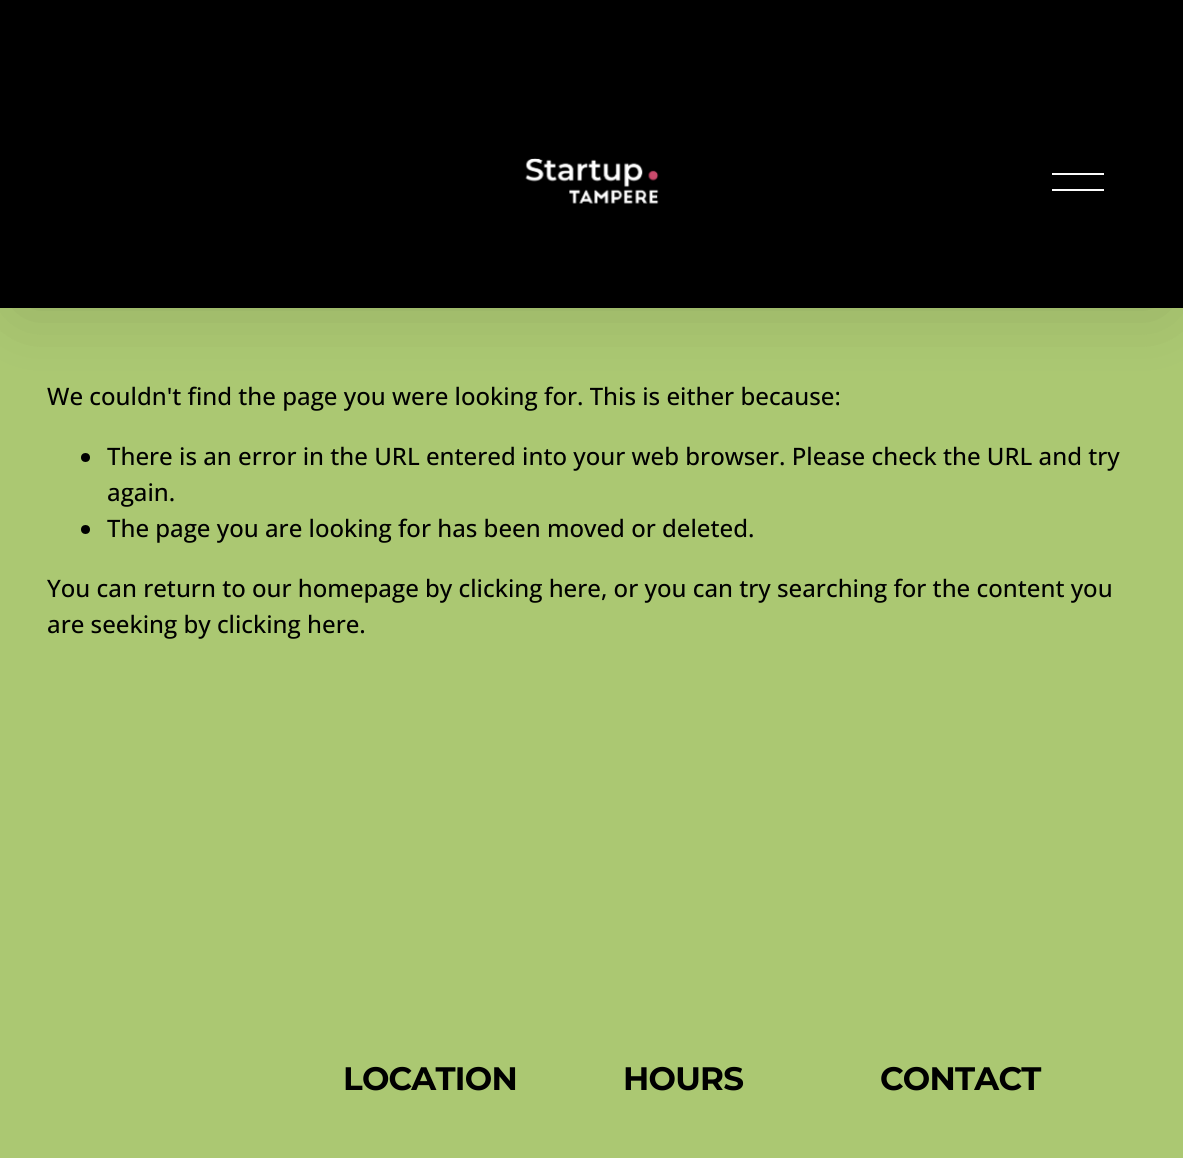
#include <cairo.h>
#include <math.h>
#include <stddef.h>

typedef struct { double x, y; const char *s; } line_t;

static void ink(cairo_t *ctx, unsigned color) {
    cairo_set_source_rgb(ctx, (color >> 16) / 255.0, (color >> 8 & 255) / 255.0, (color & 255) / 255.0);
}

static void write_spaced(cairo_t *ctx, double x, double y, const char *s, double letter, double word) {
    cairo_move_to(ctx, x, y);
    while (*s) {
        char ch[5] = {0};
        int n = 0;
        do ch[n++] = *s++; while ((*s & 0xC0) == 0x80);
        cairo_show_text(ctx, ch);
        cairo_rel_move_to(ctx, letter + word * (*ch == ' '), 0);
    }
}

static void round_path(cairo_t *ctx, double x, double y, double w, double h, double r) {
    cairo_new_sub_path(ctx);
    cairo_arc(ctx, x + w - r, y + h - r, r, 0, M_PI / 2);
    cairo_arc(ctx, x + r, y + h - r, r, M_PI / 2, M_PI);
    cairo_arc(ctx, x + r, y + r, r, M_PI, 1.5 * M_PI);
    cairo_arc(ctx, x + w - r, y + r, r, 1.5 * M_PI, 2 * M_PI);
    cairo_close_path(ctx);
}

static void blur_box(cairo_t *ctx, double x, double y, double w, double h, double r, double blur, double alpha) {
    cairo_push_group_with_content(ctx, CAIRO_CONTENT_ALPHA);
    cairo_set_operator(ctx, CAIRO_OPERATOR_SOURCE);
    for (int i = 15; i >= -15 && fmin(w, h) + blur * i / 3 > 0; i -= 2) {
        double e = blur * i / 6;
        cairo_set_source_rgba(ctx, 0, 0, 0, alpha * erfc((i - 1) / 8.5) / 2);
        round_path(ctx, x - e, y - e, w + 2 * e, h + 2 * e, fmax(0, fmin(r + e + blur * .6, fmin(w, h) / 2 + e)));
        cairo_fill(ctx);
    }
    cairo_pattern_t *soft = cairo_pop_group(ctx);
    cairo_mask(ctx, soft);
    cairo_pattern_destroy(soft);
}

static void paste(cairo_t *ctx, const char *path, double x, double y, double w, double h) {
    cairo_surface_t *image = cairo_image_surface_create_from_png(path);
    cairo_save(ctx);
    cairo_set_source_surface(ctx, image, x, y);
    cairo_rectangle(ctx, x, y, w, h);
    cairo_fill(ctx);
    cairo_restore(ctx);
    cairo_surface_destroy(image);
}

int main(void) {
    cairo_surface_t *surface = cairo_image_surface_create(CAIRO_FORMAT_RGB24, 1183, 1158);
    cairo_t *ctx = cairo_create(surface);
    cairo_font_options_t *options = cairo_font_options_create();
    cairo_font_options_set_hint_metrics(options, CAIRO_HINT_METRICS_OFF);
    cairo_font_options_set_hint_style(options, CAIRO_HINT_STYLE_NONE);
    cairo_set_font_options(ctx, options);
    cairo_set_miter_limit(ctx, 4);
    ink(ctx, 0xABC872);
    cairo_paint(ctx);
    ink(ctx, 0x000000);
    cairo_rectangle(ctx, 0, 0, 1183, 308);
    cairo_fill(ctx);
    cairo_save(ctx);
    cairo_set_fill_rule(ctx, CAIRO_FILL_RULE_EVEN_ODD);
    cairo_new_path(ctx);
    cairo_move_to(ctx, 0, 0);
    cairo_line_to(ctx, 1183, 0);
    cairo_line_to(ctx, 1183, 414);
    cairo_line_to(ctx, 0, 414);
    cairo_close_path(ctx);
    cairo_move_to(ctx, 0, 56);
    cairo_line_to(ctx, 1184, 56);
    cairo_line_to(ctx, 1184, 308);
    cairo_line_to(ctx, 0, 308);
    cairo_close_path(ctx);
    cairo_clip(ctx);
    ink(ctx, 0x000000);
    blur_box(ctx, 21, 95, 1142, 210, 0, 36, 0.15);
    cairo_restore(ctx);
    paste(ctx, "media/1.png", 525, 158, 134, 46);
    ink(ctx, 0xFBFBFB);
    cairo_rectangle(ctx, 1052, 173, 52, 2);
    cairo_fill(ctx);
    cairo_rectangle(ctx, 1052, 189, 52, 2);
    cairo_fill(ctx);
    cairo_select_font_face(ctx, "Open Sans Medium", CAIRO_FONT_SLANT_NORMAL, CAIRO_FONT_WEIGHT_NORMAL);
    cairo_set_font_size(ctx, 24);
    ink(ctx, 0x000000);
    cairo_move_to(ctx, 47, 405);
    cairo_show_text(ctx, "We couldn't find the page you were looking for. This is either because:");
    cairo_new_path(ctx);
    cairo_arc(ctx, 85.5, 457.5, 4.5, 0, 2 * M_PI);
    cairo_fill(ctx);
    cairo_move_to(ctx, 107, 465);
    cairo_show_text(ctx, "There is an error in the URL entered into your web browser. Please check the URL and try");
    cairo_move_to(ctx, 107, 501);
    cairo_show_text(ctx, "again.");
    cairo_new_path(ctx);
    cairo_arc(ctx, 85.5, 529.5, 4.5, 0, 2 * M_PI);
    cairo_fill(ctx);
    {
        static const line_t items[] = {
            {107, 537, "The page you are looking for has been moved or deleted."},
            {47, 597, "You can return to our homepage by clicking here, or you can try searching for the content you"},
            {47, 633, "are seeking by clicking here."},
        };
        for (size_t i = 0; i < sizeof items / sizeof *items; i++) {
            cairo_move_to(ctx, items[i].x, items[i].y);
            cairo_show_text(ctx, items[i].s);
        }
    }
    cairo_select_font_face(ctx, "Montserrat", CAIRO_FONT_SLANT_NORMAL, CAIRO_FONT_WEIGHT_BOLD);
    cairo_set_font_size(ctx, 32.5);
    {
        static const line_t items[] = {
            {343, 1090, "LOCATION"},
            {623, 1090, "HOURS"},
            {880, 1090, "CONTACT"},
        };
        for (size_t i = 0; i < sizeof items / sizeof *items; i++) {
            write_spaced(ctx, items[i].x, items[i].y, items[i].s, -0.75, 0);
        }
    }
    cairo_surface_write_to_png(surface, "image.png");
    cairo_font_options_destroy(options);
    cairo_destroy(ctx);
    cairo_surface_destroy(surface);
    return 0;
}
